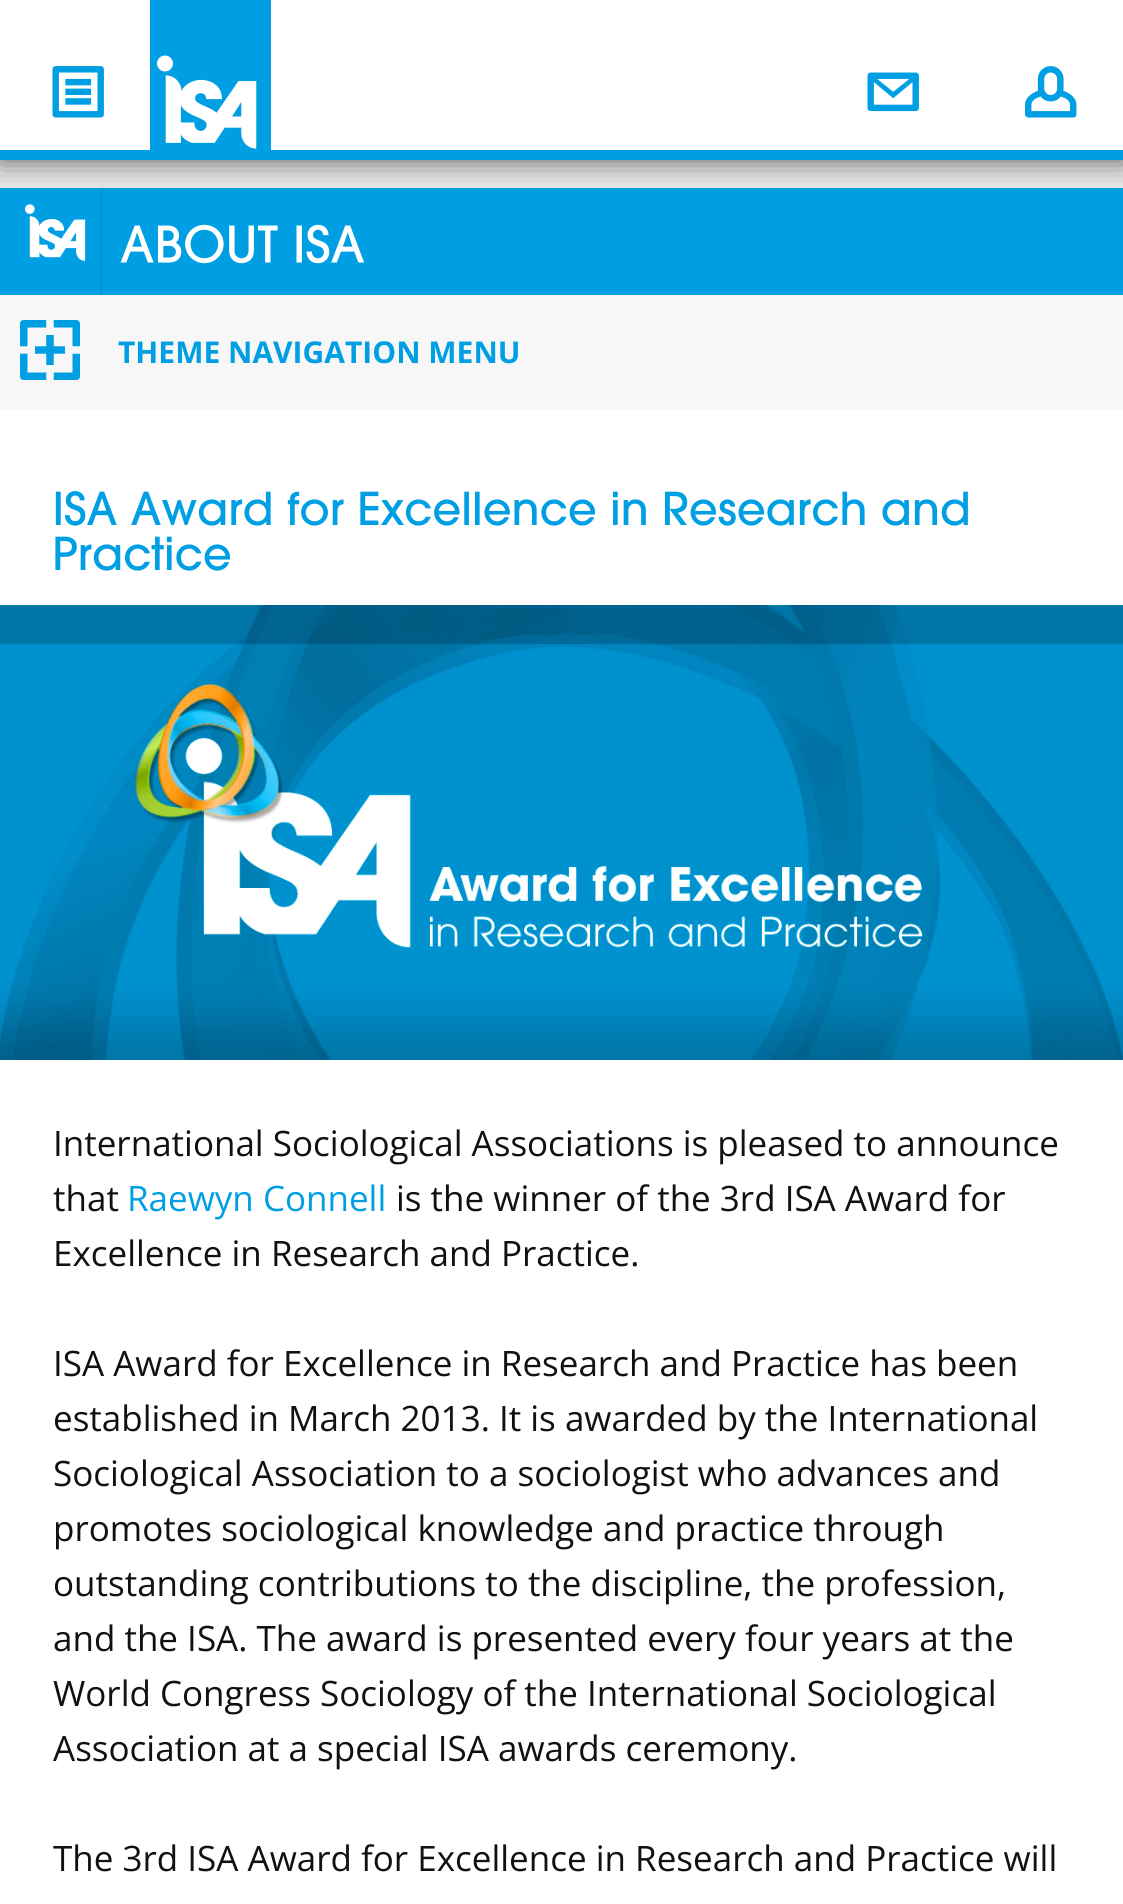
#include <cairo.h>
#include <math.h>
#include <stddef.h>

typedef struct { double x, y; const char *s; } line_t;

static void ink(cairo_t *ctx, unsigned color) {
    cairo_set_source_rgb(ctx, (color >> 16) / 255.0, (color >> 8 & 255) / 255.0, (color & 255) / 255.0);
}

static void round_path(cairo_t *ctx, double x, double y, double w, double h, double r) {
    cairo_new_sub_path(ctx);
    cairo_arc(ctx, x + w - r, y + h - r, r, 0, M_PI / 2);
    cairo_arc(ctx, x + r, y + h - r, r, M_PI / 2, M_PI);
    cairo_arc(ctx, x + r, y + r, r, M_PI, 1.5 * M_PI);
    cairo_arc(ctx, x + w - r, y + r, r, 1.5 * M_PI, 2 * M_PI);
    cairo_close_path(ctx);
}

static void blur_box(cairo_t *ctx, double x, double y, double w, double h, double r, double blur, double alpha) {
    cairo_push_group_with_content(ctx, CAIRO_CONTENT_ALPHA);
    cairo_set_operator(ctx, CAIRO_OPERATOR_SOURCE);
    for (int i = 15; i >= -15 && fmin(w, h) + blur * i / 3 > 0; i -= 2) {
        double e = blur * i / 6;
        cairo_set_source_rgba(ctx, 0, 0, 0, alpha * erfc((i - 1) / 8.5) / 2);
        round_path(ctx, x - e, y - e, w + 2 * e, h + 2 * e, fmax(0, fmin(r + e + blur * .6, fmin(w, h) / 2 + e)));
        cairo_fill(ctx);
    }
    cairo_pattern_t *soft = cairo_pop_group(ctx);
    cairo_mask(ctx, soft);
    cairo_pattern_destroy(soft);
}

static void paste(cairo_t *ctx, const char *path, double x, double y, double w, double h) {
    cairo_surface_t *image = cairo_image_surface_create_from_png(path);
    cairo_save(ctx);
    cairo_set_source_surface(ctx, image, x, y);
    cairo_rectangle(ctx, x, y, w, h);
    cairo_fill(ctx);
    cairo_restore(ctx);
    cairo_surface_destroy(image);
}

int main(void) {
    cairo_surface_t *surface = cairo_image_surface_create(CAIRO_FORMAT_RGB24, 1123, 1904);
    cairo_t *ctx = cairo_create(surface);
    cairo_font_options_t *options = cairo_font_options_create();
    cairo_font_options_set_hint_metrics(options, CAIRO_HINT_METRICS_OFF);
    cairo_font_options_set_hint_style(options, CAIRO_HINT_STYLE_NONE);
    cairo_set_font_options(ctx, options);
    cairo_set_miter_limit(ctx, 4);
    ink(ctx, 0xE8E8E8);
    cairo_paint(ctx);
    ink(ctx, 0x009FE3);
    cairo_rectangle(ctx, 0, 188, 1123, 107);
    cairo_fill(ctx);
    paste(ctx, "media/5.png", 25, 204, 61, 57);
    ink(ctx, 0x0594D1);
    cairo_rectangle(ctx, 100, 188, 3, 107);
    cairo_fill(ctx);
    ink(ctx, 0x535353);
    blur_box(ctx, 0, 0, 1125, 160, 0, 15, 1);
    ink(ctx, 0xFFFFFF);
    cairo_rectangle(ctx, 0, 0, 1123, 150);
    cairo_fill(ctx);
    ink(ctx, 0x009FE3);
    cairo_rectangle(ctx, 0, 150, 1123, 10);
    cairo_fill(ctx);
    paste(ctx, "media/1.png", 52, 66, 52, 52);
    paste(ctx, "media/2.png", 150, 0, 121, 150);
    paste(ctx, "media/3.png", 867, 72, 52, 40);
    paste(ctx, "media/4.png", 1025, 66, 52, 52);
    ink(ctx, 0xFFFFFF);
    cairo_rectangle(ctx, 0, 410, 1123, 1494);
    cairo_fill(ctx);
    paste(ctx, "media/6.png", 120, 224, 245, 40);
    ink(ctx, 0xF7F7F7);
    cairo_rectangle(ctx, 2.5, 297.5, 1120, 110);
    cairo_fill_preserve(ctx);
    cairo_set_line_width(ctx, 5);
    cairo_stroke(ctx);
    paste(ctx, "media/7.png", 20, 320, 60, 60);
    cairo_select_font_face(ctx, "Open Sans", CAIRO_FONT_SLANT_NORMAL, CAIRO_FONT_WEIGHT_BOLD);
    cairo_set_font_size(ctx, 30);
    ink(ctx, 0x009FE3);
    cairo_move_to(ctx, 118, 363);
    cairo_show_text(ctx, "THEME NAVIGATION MENU");
    paste(ctx, "media/8.png", 55, 491, 913, 35);
    paste(ctx, "media/9.png", 55, 536, 176, 35);
    paste(ctx, "media/10.png", 0, 605, 1123, 455);
    cairo_select_font_face(ctx, "Open Sans", CAIRO_FONT_SLANT_NORMAL, CAIRO_FONT_WEIGHT_NORMAL);
    cairo_set_font_size(ctx, 35);
    ink(ctx, 0x111111);
    cairo_move_to(ctx, 53, 1156);
    cairo_show_text(ctx, "International Sociological Associations is pleased to announce");
    cairo_move_to(ctx, 53, 1211);
    cairo_show_text(ctx, "that");
    ink(ctx, 0x009FE3);
    cairo_move_to(ctx, 127, 1211);
    cairo_show_text(ctx, "Raewyn Connell");
    ink(ctx, 0x111111);
    {
        static const line_t items[] = {
            {396, 1211, "is the winner of the 3rd ISA Award for"},
            {53, 1266, "Excellence in Research and Practice."},
            {53, 1376, "ISA Award for Excellence in Research and Practice has been"},
            {53, 1431, "established in March 2013. It is awarded by the International"},
            {53, 1486, "Sociological Association to a sociologist who advances and"},
            {53, 1541, "promotes sociological knowledge and practice through"},
            {53, 1596, "outstanding contributions to the discipline, the profession,"},
            {53, 1651, "and the ISA. The award is presented every four years at the"},
            {53, 1706, "World Congress Sociology of the International Sociological"},
            {53, 1761, "Association at a special ISA awards ceremony."},
            {53, 1871, "The 3rd ISA Award for Excellence in Research and Practice will"},
        };
        for (size_t i = 0; i < sizeof items / sizeof *items; i++) {
            cairo_move_to(ctx, items[i].x, items[i].y);
            cairo_show_text(ctx, items[i].s);
        }
    }
    cairo_surface_write_to_png(surface, "image.png");
    cairo_font_options_destroy(options);
    cairo_destroy(ctx);
    cairo_surface_destroy(surface);
    return 0;
}
